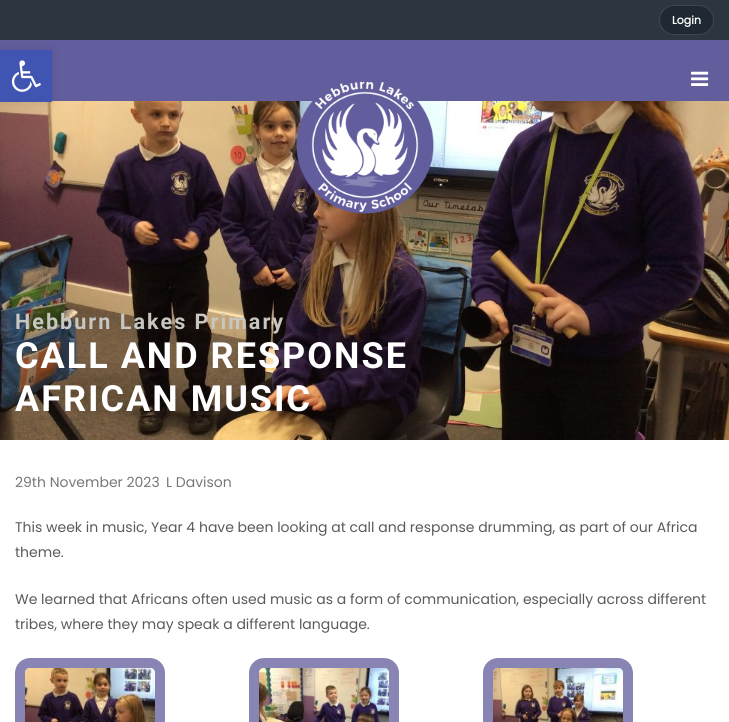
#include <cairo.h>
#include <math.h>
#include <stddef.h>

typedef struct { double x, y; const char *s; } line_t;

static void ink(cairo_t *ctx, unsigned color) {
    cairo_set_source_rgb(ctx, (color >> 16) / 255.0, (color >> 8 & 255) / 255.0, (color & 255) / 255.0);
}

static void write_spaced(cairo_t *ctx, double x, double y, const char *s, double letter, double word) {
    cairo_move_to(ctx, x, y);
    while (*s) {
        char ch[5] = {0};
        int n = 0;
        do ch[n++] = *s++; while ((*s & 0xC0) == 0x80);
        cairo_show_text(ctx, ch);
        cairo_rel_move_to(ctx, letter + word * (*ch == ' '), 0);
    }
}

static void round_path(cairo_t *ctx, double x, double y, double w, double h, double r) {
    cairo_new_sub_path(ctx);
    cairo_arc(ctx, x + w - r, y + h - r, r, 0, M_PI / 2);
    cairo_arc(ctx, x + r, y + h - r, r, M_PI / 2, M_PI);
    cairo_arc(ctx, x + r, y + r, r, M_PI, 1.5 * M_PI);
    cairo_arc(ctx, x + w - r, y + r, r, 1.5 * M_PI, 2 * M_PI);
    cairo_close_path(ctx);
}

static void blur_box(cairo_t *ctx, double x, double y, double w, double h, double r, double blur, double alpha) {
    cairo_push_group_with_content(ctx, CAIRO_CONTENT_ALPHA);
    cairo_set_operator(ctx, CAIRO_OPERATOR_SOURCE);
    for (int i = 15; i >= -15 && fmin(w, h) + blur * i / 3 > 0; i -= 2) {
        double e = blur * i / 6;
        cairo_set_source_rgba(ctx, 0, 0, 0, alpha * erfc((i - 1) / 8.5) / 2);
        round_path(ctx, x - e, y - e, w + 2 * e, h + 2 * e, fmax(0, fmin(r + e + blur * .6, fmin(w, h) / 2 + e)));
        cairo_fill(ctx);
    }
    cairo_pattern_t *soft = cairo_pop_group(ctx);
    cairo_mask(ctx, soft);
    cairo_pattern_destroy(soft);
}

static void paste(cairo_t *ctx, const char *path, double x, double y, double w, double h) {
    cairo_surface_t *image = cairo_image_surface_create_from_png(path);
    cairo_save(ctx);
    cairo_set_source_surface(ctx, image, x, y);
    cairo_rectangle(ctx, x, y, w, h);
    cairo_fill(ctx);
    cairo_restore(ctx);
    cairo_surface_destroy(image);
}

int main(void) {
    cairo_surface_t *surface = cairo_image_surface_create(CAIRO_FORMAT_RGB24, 729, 722);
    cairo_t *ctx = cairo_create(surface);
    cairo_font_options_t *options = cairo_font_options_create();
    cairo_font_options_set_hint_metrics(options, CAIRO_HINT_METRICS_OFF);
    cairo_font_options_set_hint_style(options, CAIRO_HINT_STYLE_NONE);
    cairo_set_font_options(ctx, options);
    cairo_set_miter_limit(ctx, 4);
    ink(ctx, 0xFFFFFF);
    cairo_paint(ctx);
    ink(ctx, 0x625D9D);
    cairo_rectangle(ctx, 0, 40, 729, 61);
    cairo_fill(ctx);
    paste(ctx, "media/4.png", 0, 101, 729, 339);
    ink(ctx, 0x000000);
    blur_box(ctx, 0, 50, 52, 52, 0, 5, 0.1);
    ink(ctx, 0x2B3641);
    cairo_rectangle(ctx, 0, 0, 729, 40);
    cairo_fill(ctx);
    ink(ctx, 0x1F2933);
    round_path(ctx, 659.5, 5.5, 54, 29, 14.5);
    cairo_fill_preserve(ctx);
    ink(ctx, 0x3A4753);
    cairo_set_line_width(ctx, 1);
    cairo_stroke(ctx);
    cairo_select_font_face(ctx, "Poppins", CAIRO_FONT_SLANT_NORMAL, CAIRO_FONT_WEIGHT_BOLD);
    cairo_set_font_size(ctx, 11);
    ink(ctx, 0xFFFFFF);
    cairo_move_to(ctx, 672, 24);
    cairo_show_text(ctx, "Login");
    ink(ctx, 0x4054B2);
    cairo_rectangle(ctx, 0, 50, 52, 52);
    cairo_fill(ctx);
    paste(ctx, "media/1.png", 11, 60, 30, 32);
    paste(ctx, "media/2.png", 691, 71, 18, 15);
    paste(ctx, "media/3.png", 296, 81, 138, 133);
    cairo_select_font_face(ctx, "Roboto", CAIRO_FONT_SLANT_NORMAL, CAIRO_FONT_WEIGHT_BOLD);
    cairo_set_font_size(ctx, 21.6);
    ink(ctx, 0xC8C6C1);
    write_spaced(ctx, 15, 329, "Hebburn Lakes Primary", 2, 0);
    cairo_set_font_size(ctx, 36);
    ink(ctx, 0xFFFFFF);
    write_spaced(ctx, 15, 368, "CALL AND RESPONSE", 2, 0);
    write_spaced(ctx, 15, 411, "AFRICAN MUSIC", 2, 0);
    cairo_select_font_face(ctx, "Poppins", CAIRO_FONT_SLANT_NORMAL, CAIRO_FONT_WEIGHT_NORMAL);
    cairo_set_font_size(ctx, 14);
    ink(ctx, 0x777777);
    cairo_move_to(ctx, 15, 487);
    cairo_show_text(ctx, "29th November 2023");
    cairo_move_to(ctx, 166, 487);
    cairo_show_text(ctx, "L Davison");
    ink(ctx, 0x5A5A5A);
    {
        static const line_t items[] = {
            {15, 532, "This week in music, Year 4 have been looking at call and response drumming, as part of our Africa"},
            {15, 557, "theme."},
            {15, 604, "We learned that Africans often used music as a form of communication, especially across different"},
            {15, 629, "tribes, where they may speak a different language."},
        };
        for (size_t i = 0; i < sizeof items / sizeof *items; i++) {
            cairo_move_to(ctx, items[i].x, items[i].y);
            cairo_show_text(ctx, items[i].s);
        }
    }
    round_path(ctx, 20, 663, 140, 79, 10);
    ink(ctx, 0x8884B4);
    cairo_set_line_width(ctx, 10);
    cairo_stroke(ctx);
    paste(ctx, "media/5.png", 25, 668, 130, 54);
    round_path(ctx, 254, 663, 140, 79, 10);
    cairo_stroke(ctx);
    paste(ctx, "media/6.png", 259, 668, 130, 54);
    round_path(ctx, 488, 663, 140, 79, 10);
    cairo_stroke(ctx);
    paste(ctx, "media/7.png", 493, 668, 130, 54);
    cairo_surface_write_to_png(surface, "image.png");
    cairo_font_options_destroy(options);
    cairo_destroy(ctx);
    cairo_surface_destroy(surface);
    return 0;
}
